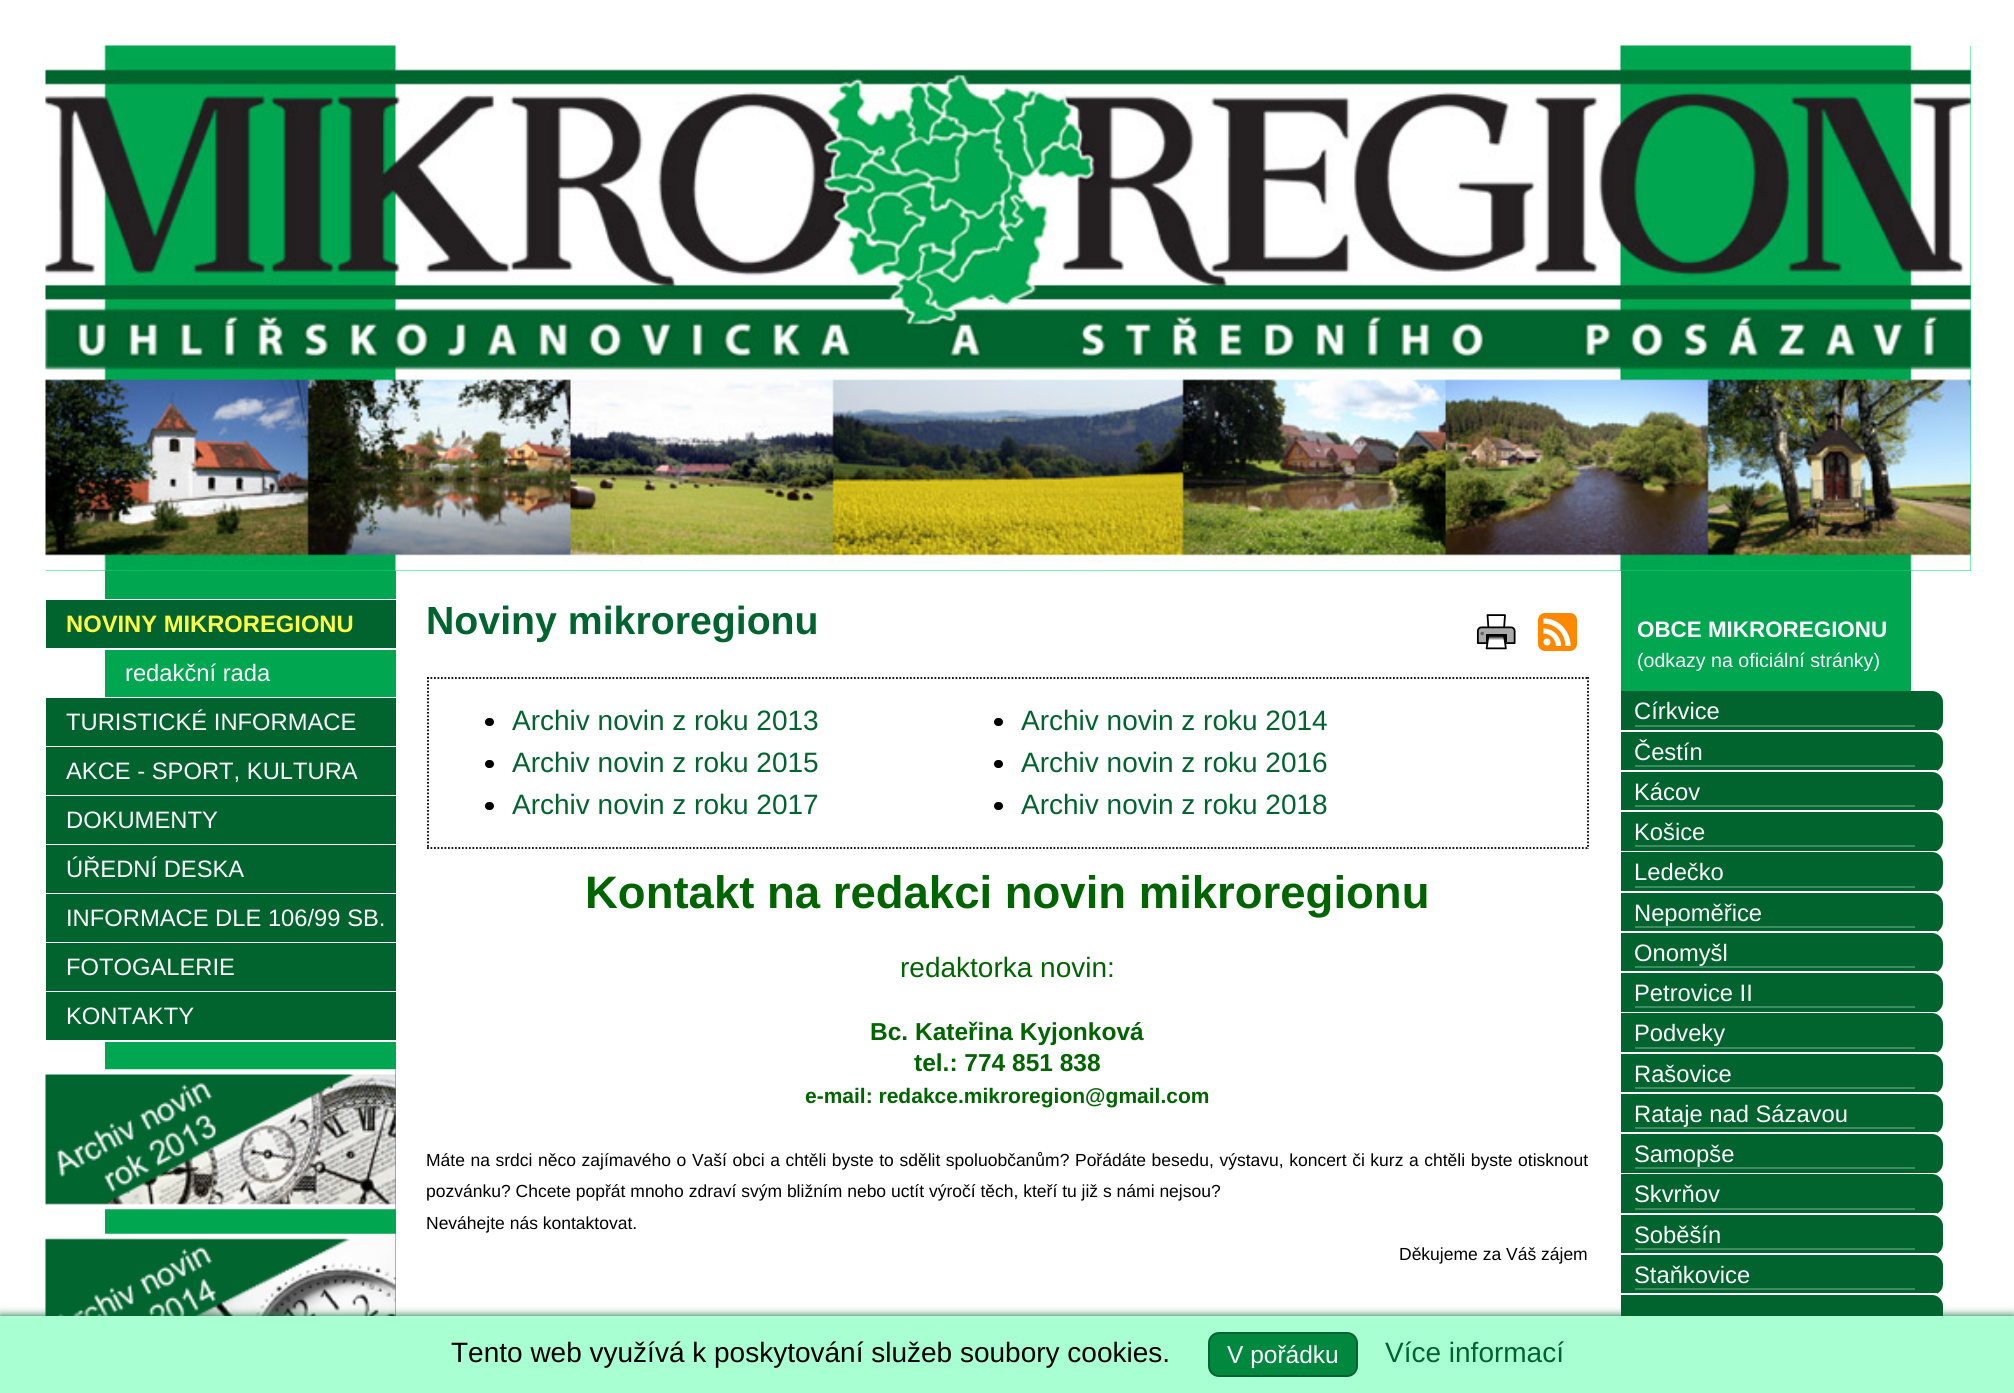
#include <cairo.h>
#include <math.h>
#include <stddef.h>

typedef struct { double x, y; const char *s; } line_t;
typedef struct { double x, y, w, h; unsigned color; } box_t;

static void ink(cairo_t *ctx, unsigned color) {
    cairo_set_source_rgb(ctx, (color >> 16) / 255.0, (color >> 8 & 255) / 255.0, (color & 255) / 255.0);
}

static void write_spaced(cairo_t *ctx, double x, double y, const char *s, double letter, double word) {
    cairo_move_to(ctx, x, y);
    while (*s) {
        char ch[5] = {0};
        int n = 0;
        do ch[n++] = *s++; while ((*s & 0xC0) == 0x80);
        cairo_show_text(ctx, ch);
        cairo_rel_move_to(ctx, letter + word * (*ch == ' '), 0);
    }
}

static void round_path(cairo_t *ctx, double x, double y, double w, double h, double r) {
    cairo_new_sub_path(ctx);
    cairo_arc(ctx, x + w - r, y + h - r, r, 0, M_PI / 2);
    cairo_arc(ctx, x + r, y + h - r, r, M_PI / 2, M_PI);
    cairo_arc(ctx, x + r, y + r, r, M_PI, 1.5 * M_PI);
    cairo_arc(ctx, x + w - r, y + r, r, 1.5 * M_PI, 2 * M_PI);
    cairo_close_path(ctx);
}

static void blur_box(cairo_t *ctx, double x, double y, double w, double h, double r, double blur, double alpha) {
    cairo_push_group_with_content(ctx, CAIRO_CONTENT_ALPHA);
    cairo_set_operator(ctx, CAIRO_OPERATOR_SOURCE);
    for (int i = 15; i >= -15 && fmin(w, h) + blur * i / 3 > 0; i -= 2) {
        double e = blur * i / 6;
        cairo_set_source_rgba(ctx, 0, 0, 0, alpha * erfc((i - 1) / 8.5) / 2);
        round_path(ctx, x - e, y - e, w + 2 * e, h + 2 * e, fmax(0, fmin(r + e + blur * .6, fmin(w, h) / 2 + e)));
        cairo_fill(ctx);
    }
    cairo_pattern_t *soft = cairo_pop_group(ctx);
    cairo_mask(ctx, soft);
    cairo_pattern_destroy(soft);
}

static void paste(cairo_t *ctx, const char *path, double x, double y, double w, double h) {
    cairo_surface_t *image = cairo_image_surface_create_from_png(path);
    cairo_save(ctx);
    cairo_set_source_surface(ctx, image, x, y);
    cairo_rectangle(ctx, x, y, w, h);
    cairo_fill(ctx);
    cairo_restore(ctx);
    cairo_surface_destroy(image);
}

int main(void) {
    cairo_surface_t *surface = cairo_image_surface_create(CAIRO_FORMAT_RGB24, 2014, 1393);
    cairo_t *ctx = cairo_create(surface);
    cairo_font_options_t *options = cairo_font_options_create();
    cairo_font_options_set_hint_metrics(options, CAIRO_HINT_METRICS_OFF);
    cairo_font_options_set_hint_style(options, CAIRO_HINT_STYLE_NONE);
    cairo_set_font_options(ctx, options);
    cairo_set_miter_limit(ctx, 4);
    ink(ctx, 0xFFFFFF);
    cairo_paint(ctx);
    ink(ctx, 0x00DB6A);
    cairo_rectangle(ctx, 46, 46, 1925, 525);
    cairo_fill(ctx);
    paste(ctx, "media/1.png", 45, 45, 1926, 526);
    {
        static const box_t items[] = {
            {105, 571, 291, 745, 0x00A650},
            {105, 599, 291, 1, 0xFFFFFF},
            {46, 600, 350, 48, 0x01642E},
            {105, 648, 291, 2, 0xFFFFFF},
        };
        for (size_t i = 0; i < sizeof items / sizeof *items; i++) {
            ink(ctx, items[i].color);
            cairo_rectangle(ctx, items[i].x, items[i].y, items[i].w, items[i].h);
            cairo_fill(ctx);
        }
    }
    cairo_select_font_face(ctx, "Liberation Sans", CAIRO_FONT_SLANT_NORMAL, CAIRO_FONT_WEIGHT_BOLD);
    cairo_set_font_size(ctx, 23.75);
    ink(ctx, 0xFFFF44);
    cairo_move_to(ctx, 66, 632);
    cairo_show_text(ctx, "NOVINY MIKROREGIONU");
    ink(ctx, 0xFFFFFF);
    cairo_rectangle(ctx, 105, 697, 291, 1);
    cairo_fill(ctx);
    cairo_select_font_face(ctx, "Liberation Sans", CAIRO_FONT_SLANT_NORMAL, CAIRO_FONT_WEIGHT_NORMAL);
    cairo_move_to(ctx, 125, 681);
    cairo_show_text(ctx, "redakční rada");
    ink(ctx, 0x01642E);
    cairo_rectangle(ctx, 46, 698, 350, 48);
    cairo_fill(ctx);
    ink(ctx, 0xFFFFFF);
    cairo_rectangle(ctx, 105, 746, 291, 1);
    cairo_fill(ctx);
    cairo_move_to(ctx, 66, 730);
    cairo_show_text(ctx, "TURISTICKÉ INFORMACE");
    ink(ctx, 0x01642E);
    cairo_rectangle(ctx, 46, 747, 350, 48);
    cairo_fill(ctx);
    ink(ctx, 0xFFFFFF);
    cairo_rectangle(ctx, 105, 795, 291, 1);
    cairo_fill(ctx);
    cairo_move_to(ctx, 66, 779);
    cairo_show_text(ctx, "AKCE - SPORT, KULTURA");
    ink(ctx, 0x01642E);
    cairo_rectangle(ctx, 46, 796, 350, 48);
    cairo_fill(ctx);
    ink(ctx, 0xFFFFFF);
    cairo_rectangle(ctx, 105, 844, 291, 1);
    cairo_fill(ctx);
    cairo_move_to(ctx, 66, 828);
    cairo_show_text(ctx, "DOKUMENTY");
    ink(ctx, 0x01642E);
    cairo_rectangle(ctx, 46, 845, 350, 48);
    cairo_fill(ctx);
    ink(ctx, 0xFFFFFF);
    cairo_rectangle(ctx, 105, 893, 291, 1);
    cairo_fill(ctx);
    cairo_move_to(ctx, 66, 877);
    cairo_show_text(ctx, "ÚŘEDNÍ DESKA");
    ink(ctx, 0x01642E);
    cairo_rectangle(ctx, 46, 894, 350, 48);
    cairo_fill(ctx);
    ink(ctx, 0xFFFFFF);
    cairo_rectangle(ctx, 105, 942, 291, 1);
    cairo_fill(ctx);
    cairo_move_to(ctx, 66, 926);
    cairo_show_text(ctx, "INFORMACE DLE 106/99 SB.");
    ink(ctx, 0x01642E);
    cairo_rectangle(ctx, 46, 943, 350, 48);
    cairo_fill(ctx);
    ink(ctx, 0xFFFFFF);
    cairo_rectangle(ctx, 105, 991, 291, 1);
    cairo_fill(ctx);
    cairo_move_to(ctx, 66, 975);
    cairo_show_text(ctx, "FOTOGALERIE");
    ink(ctx, 0x01642E);
    cairo_rectangle(ctx, 46, 992, 350, 48);
    cairo_fill(ctx);
    ink(ctx, 0xFFFFFF);
    cairo_rectangle(ctx, 105, 1040, 291, 2);
    cairo_fill(ctx);
    cairo_move_to(ctx, 66, 1024);
    cairo_show_text(ctx, "KONTAKTY");
    paste(ctx, "media/2.png", 45, 1069, 351, 141);
    paste(ctx, "media/3.png", 45, 1233, 351, 83);
    cairo_select_font_face(ctx, "Liberation Sans", CAIRO_FONT_SLANT_NORMAL, CAIRO_FONT_WEIGHT_BOLD);
    cairo_set_font_size(ctx, 39.25);
    ink(ctx, 0x01642E);
    cairo_move_to(ctx, 426, 634);
    cairo_show_text(ctx, "Noviny mikroregionu");
    paste(ctx, "media/4.png", 1476, 614, 40, 36);
    ink(ctx, 0xFF8800);
    round_path(ctx, 1538, 613, 39, 38, 7);
    cairo_fill(ctx);
    ink(ctx, 0xFFFFFF);
    cairo_arc(ctx, 1547, 642, 3.5, 0, 2 * M_PI);
    cairo_fill(ctx);
    cairo_new_path(ctx);
    cairo_move_to(ctx, 1543.5, 631);
    cairo_curve_to(ctx, 1551.5, 631, 1558.5, 637.5, 1558.5, 646);
    cairo_move_to(ctx, 1543.5, 621);
    cairo_curve_to(ctx, 1557, 621, 1568, 632, 1568, 646);
    cairo_set_line_width(ctx, 5.2);
    cairo_stroke(ctx);
    cairo_new_path(ctx);
    cairo_move_to(ctx, 427, 678);
    cairo_line_to(ctx, 1589, 678);
    ink(ctx, 0x000000);
    cairo_set_line_width(ctx, 1.8);
    cairo_set_dash(ctx, (double[]){1.75, 1.75}, 2, 0);
    cairo_stroke(ctx);
    cairo_new_path(ctx);
    cairo_move_to(ctx, 1588, 677);
    cairo_line_to(ctx, 1588, 849);
    cairo_stroke(ctx);
    cairo_new_path(ctx);
    cairo_move_to(ctx, 427, 848);
    cairo_line_to(ctx, 1589, 848);
    cairo_stroke(ctx);
    cairo_new_path(ctx);
    cairo_move_to(ctx, 428, 677);
    cairo_line_to(ctx, 428, 849);
    cairo_stroke(ctx);
    round_path(ctx, 485, 718, 9, 8, 4);
    cairo_fill(ctx);
    cairo_select_font_face(ctx, "Liberation Sans", CAIRO_FONT_SLANT_NORMAL, CAIRO_FONT_WEIGHT_NORMAL);
    cairo_set_font_size(ctx, 28);
    ink(ctx, 0x01642E);
    cairo_move_to(ctx, 512, 730);
    cairo_show_text(ctx, "Archiv novin z roku 2013");
    ink(ctx, 0x000000);
    round_path(ctx, 994, 718, 9, 8, 4);
    cairo_fill(ctx);
    ink(ctx, 0x01642E);
    cairo_move_to(ctx, 1021, 730);
    cairo_show_text(ctx, "Archiv novin z roku 2014");
    ink(ctx, 0x000000);
    round_path(ctx, 485, 760, 9, 8, 4);
    cairo_fill(ctx);
    ink(ctx, 0x01642E);
    cairo_move_to(ctx, 512, 772);
    cairo_show_text(ctx, "Archiv novin z roku 2015");
    ink(ctx, 0x000000);
    round_path(ctx, 994, 760, 9, 8, 4);
    cairo_fill(ctx);
    ink(ctx, 0x01642E);
    cairo_move_to(ctx, 1021, 772);
    cairo_show_text(ctx, "Archiv novin z roku 2016");
    ink(ctx, 0x000000);
    round_path(ctx, 485, 802, 9, 8, 4);
    cairo_fill(ctx);
    ink(ctx, 0x01642E);
    cairo_move_to(ctx, 512, 814);
    cairo_show_text(ctx, "Archiv novin z roku 2017");
    ink(ctx, 0x000000);
    round_path(ctx, 994, 802, 9, 8, 4);
    cairo_fill(ctx);
    ink(ctx, 0x01642E);
    cairo_move_to(ctx, 1021, 814);
    cairo_show_text(ctx, "Archiv novin z roku 2018");
    cairo_select_font_face(ctx, "Liberation Sans", CAIRO_FONT_SLANT_NORMAL, CAIRO_FONT_WEIGHT_BOLD);
    cairo_set_font_size(ctx, 45.5);
    ink(ctx, 0x006400);
    cairo_move_to(ctx, 585, 908);
    cairo_show_text(ctx, "Kontakt na redakci novin mikroregionu");
    cairo_select_font_face(ctx, "Liberation Sans", CAIRO_FONT_SLANT_NORMAL, CAIRO_FONT_WEIGHT_NORMAL);
    cairo_set_font_size(ctx, 28);
    cairo_move_to(ctx, 900, 977);
    cairo_show_text(ctx, "redaktorka novin:");
    cairo_select_font_face(ctx, "Liberation Sans", CAIRO_FONT_SLANT_NORMAL, CAIRO_FONT_WEIGHT_BOLD);
    cairo_set_font_size(ctx, 24.5);
    cairo_move_to(ctx, 870, 1040);
    cairo_show_text(ctx, "Bc. Kateřina Kyjonková");
    cairo_move_to(ctx, 914, 1071);
    cairo_show_text(ctx, "tel.: 774 851 838");
    cairo_set_font_size(ctx, 21);
    cairo_move_to(ctx, 805, 1103);
    cairo_show_text(ctx, "e-mail: redakce.mikroregion@gmail.com");
    cairo_select_font_face(ctx, "Liberation Sans", CAIRO_FONT_SLANT_NORMAL, CAIRO_FONT_WEIGHT_NORMAL);
    cairo_set_font_size(ctx, 17.5);
    ink(ctx, 0x000000);
    write_spaced(ctx, 426, 1166, "Máte na srdci něco zajímavého o Vaší obci a chtěli byste to sdělit spoluobčanům? Pořádáte besedu, výstavu, koncert či kurz a chtěli byste otisknout", 0, 0.7);
    {
        static const line_t items[] = {
            {426, 1197, "pozvánku? Chcete popřát mnoho zdraví svým bližním nebo uctít výročí těch, kteří tu již s námi nejsou?"},
            {426, 1229, "Neváhejte nás kontaktovat."},
            {1399, 1260, "Děkujeme za Váš zájem"},
        };
        for (size_t i = 0; i < sizeof items / sizeof *items; i++) {
            cairo_move_to(ctx, items[i].x, items[i].y);
            cairo_show_text(ctx, items[i].s);
        }
    }
    ink(ctx, 0x00A650);
    cairo_rectangle(ctx, 1621, 571, 290, 120);
    cairo_fill(ctx);
    cairo_select_font_face(ctx, "Liberation Sans", CAIRO_FONT_SLANT_NORMAL, CAIRO_FONT_WEIGHT_BOLD);
    cairo_set_font_size(ctx, 22.4);
    ink(ctx, 0xFFFFFF);
    cairo_move_to(ctx, 1637, 637);
    cairo_show_text(ctx, "OBCE MIKROREGIONU");
    cairo_select_font_face(ctx, "Liberation Sans", CAIRO_FONT_SLANT_NORMAL, CAIRO_FONT_WEIGHT_NORMAL);
    cairo_set_font_size(ctx, 19.6);
    cairo_move_to(ctx, 1637, 667);
    cairo_show_text(ctx, "(odkazy na oficiální stránky)");
    ink(ctx, 0x01642E);
    cairo_new_path(ctx);
    cairo_move_to(ctx, 1621, 691);
    cairo_line_to(ctx, 1932, 691);
    cairo_curve_to(ctx, 1938, 691, 1943, 696, 1943, 702);
    cairo_line_to(ctx, 1943, 721);
    cairo_curve_to(ctx, 1943, 727, 1938, 732, 1932, 732);
    cairo_line_to(ctx, 1621, 732);
    cairo_close_path(ctx);
    cairo_fill(ctx);
    ink(ctx, 0xFFFFFF);
    cairo_rectangle(ctx, 1621, 730, 316, 2);
    cairo_fill(ctx);
    cairo_set_font_size(ctx, 23.75);
    cairo_move_to(ctx, 1634, 719);
    cairo_show_text(ctx, "Církvice");
    ink(ctx, 0x408C62);
    cairo_rectangle(ctx, 1635, 725, 280, 2);
    cairo_fill(ctx);
    ink(ctx, 0x01642E);
    cairo_new_path(ctx);
    cairo_move_to(ctx, 1621, 732);
    cairo_line_to(ctx, 1932, 732);
    cairo_curve_to(ctx, 1938, 732, 1943, 737, 1943, 743);
    cairo_line_to(ctx, 1943, 761);
    cairo_curve_to(ctx, 1943, 767, 1938, 772, 1932, 772);
    cairo_line_to(ctx, 1621, 772);
    cairo_close_path(ctx);
    cairo_fill(ctx);
    ink(ctx, 0xFFFFFF);
    cairo_rectangle(ctx, 1621, 770, 316, 2);
    cairo_fill(ctx);
    cairo_move_to(ctx, 1634, 760);
    cairo_show_text(ctx, "Čestín");
    ink(ctx, 0x408C62);
    cairo_rectangle(ctx, 1635, 765, 280, 2);
    cairo_fill(ctx);
    ink(ctx, 0x01642E);
    cairo_new_path(ctx);
    cairo_move_to(ctx, 1621, 772);
    cairo_line_to(ctx, 1932, 772);
    cairo_curve_to(ctx, 1938, 772, 1943, 777, 1943, 783);
    cairo_line_to(ctx, 1943, 801);
    cairo_curve_to(ctx, 1943, 807, 1938, 812, 1932, 812);
    cairo_line_to(ctx, 1621, 812);
    cairo_close_path(ctx);
    cairo_fill(ctx);
    ink(ctx, 0xFFFFFF);
    cairo_rectangle(ctx, 1621, 810, 316, 2);
    cairo_fill(ctx);
    cairo_move_to(ctx, 1634, 800);
    cairo_show_text(ctx, "Kácov");
    ink(ctx, 0x408C62);
    cairo_rectangle(ctx, 1635, 805, 280, 2);
    cairo_fill(ctx);
    ink(ctx, 0x01642E);
    cairo_new_path(ctx);
    cairo_move_to(ctx, 1621, 812);
    cairo_line_to(ctx, 1932, 812);
    cairo_curve_to(ctx, 1938, 812, 1943, 817, 1943, 823);
    cairo_line_to(ctx, 1943, 841);
    cairo_curve_to(ctx, 1943, 847, 1938, 852, 1932, 852);
    cairo_line_to(ctx, 1621, 852);
    cairo_close_path(ctx);
    cairo_fill(ctx);
    ink(ctx, 0xFFFFFF);
    cairo_rectangle(ctx, 1621, 851, 316, 1);
    cairo_fill(ctx);
    cairo_move_to(ctx, 1634, 840);
    cairo_show_text(ctx, "Košice");
    ink(ctx, 0x408C62);
    cairo_rectangle(ctx, 1635, 845, 280, 2);
    cairo_fill(ctx);
    ink(ctx, 0x01642E);
    cairo_new_path(ctx);
    cairo_move_to(ctx, 1621, 852);
    cairo_line_to(ctx, 1932, 852);
    cairo_curve_to(ctx, 1938, 852, 1943, 857, 1943, 863);
    cairo_line_to(ctx, 1943, 882);
    cairo_curve_to(ctx, 1943, 888, 1938, 893, 1932, 893);
    cairo_line_to(ctx, 1621, 893);
    cairo_close_path(ctx);
    cairo_fill(ctx);
    ink(ctx, 0xFFFFFF);
    cairo_rectangle(ctx, 1621, 891, 316, 2);
    cairo_fill(ctx);
    cairo_move_to(ctx, 1634, 880);
    cairo_show_text(ctx, "Ledečko");
    ink(ctx, 0x408C62);
    cairo_rectangle(ctx, 1635, 886, 280, 2);
    cairo_fill(ctx);
    ink(ctx, 0x01642E);
    cairo_new_path(ctx);
    cairo_move_to(ctx, 1621, 893);
    cairo_line_to(ctx, 1932, 893);
    cairo_curve_to(ctx, 1938, 893, 1943, 898, 1943, 904);
    cairo_line_to(ctx, 1943, 922);
    cairo_curve_to(ctx, 1943, 928, 1938, 933, 1932, 933);
    cairo_line_to(ctx, 1621, 933);
    cairo_close_path(ctx);
    cairo_fill(ctx);
    ink(ctx, 0xFFFFFF);
    cairo_rectangle(ctx, 1621, 931, 316, 2);
    cairo_fill(ctx);
    cairo_move_to(ctx, 1634, 921);
    cairo_show_text(ctx, "Nepoměřice");
    ink(ctx, 0x408C62);
    cairo_rectangle(ctx, 1635, 926, 280, 2);
    cairo_fill(ctx);
    ink(ctx, 0x01642E);
    cairo_new_path(ctx);
    cairo_move_to(ctx, 1621, 933);
    cairo_line_to(ctx, 1932, 933);
    cairo_curve_to(ctx, 1938, 933, 1943, 938, 1943, 944);
    cairo_line_to(ctx, 1943, 962);
    cairo_curve_to(ctx, 1943, 968, 1938, 973, 1932, 973);
    cairo_line_to(ctx, 1621, 973);
    cairo_close_path(ctx);
    cairo_fill(ctx);
    ink(ctx, 0xFFFFFF);
    cairo_rectangle(ctx, 1621, 971, 316, 2);
    cairo_fill(ctx);
    cairo_move_to(ctx, 1634, 961);
    cairo_show_text(ctx, "Onomyšl");
    ink(ctx, 0x408C62);
    cairo_rectangle(ctx, 1635, 966, 280, 2);
    cairo_fill(ctx);
    ink(ctx, 0x01642E);
    cairo_new_path(ctx);
    cairo_move_to(ctx, 1621, 973);
    cairo_line_to(ctx, 1932, 973);
    cairo_curve_to(ctx, 1938, 973, 1943, 978, 1943, 984);
    cairo_line_to(ctx, 1943, 1002);
    cairo_curve_to(ctx, 1943, 1008, 1938, 1013, 1932, 1013);
    cairo_line_to(ctx, 1621, 1013);
    cairo_close_path(ctx);
    cairo_fill(ctx);
    ink(ctx, 0xFFFFFF);
    cairo_rectangle(ctx, 1621, 1012, 316, 1);
    cairo_fill(ctx);
    cairo_move_to(ctx, 1634, 1001);
    cairo_show_text(ctx, "Petrovice II");
    ink(ctx, 0x408C62);
    cairo_rectangle(ctx, 1635, 1006, 280, 2);
    cairo_fill(ctx);
    ink(ctx, 0x01642E);
    cairo_new_path(ctx);
    cairo_move_to(ctx, 1621, 1013);
    cairo_line_to(ctx, 1932, 1013);
    cairo_curve_to(ctx, 1938, 1013, 1943, 1018, 1943, 1024);
    cairo_line_to(ctx, 1943, 1043);
    cairo_curve_to(ctx, 1943, 1049, 1938, 1054, 1932, 1054);
    cairo_line_to(ctx, 1621, 1054);
    cairo_close_path(ctx);
    cairo_fill(ctx);
    ink(ctx, 0xFFFFFF);
    cairo_rectangle(ctx, 1621, 1052, 316, 2);
    cairo_fill(ctx);
    cairo_move_to(ctx, 1634, 1041);
    cairo_show_text(ctx, "Podveky");
    ink(ctx, 0x408C62);
    cairo_rectangle(ctx, 1635, 1047, 280, 2);
    cairo_fill(ctx);
    ink(ctx, 0x01642E);
    cairo_new_path(ctx);
    cairo_move_to(ctx, 1621, 1054);
    cairo_line_to(ctx, 1932, 1054);
    cairo_curve_to(ctx, 1938, 1054, 1943, 1059, 1943, 1065);
    cairo_line_to(ctx, 1943, 1083);
    cairo_curve_to(ctx, 1943, 1089, 1938, 1094, 1932, 1094);
    cairo_line_to(ctx, 1621, 1094);
    cairo_close_path(ctx);
    cairo_fill(ctx);
    ink(ctx, 0xFFFFFF);
    cairo_rectangle(ctx, 1621, 1092, 316, 2);
    cairo_fill(ctx);
    cairo_move_to(ctx, 1634, 1082);
    cairo_show_text(ctx, "Rašovice");
    ink(ctx, 0x408C62);
    cairo_rectangle(ctx, 1635, 1087, 280, 2);
    cairo_fill(ctx);
    ink(ctx, 0x01642E);
    cairo_new_path(ctx);
    cairo_move_to(ctx, 1621, 1094);
    cairo_line_to(ctx, 1932, 1094);
    cairo_curve_to(ctx, 1938, 1094, 1943, 1099, 1943, 1105);
    cairo_line_to(ctx, 1943, 1123);
    cairo_curve_to(ctx, 1943, 1129, 1938, 1134, 1932, 1134);
    cairo_line_to(ctx, 1621, 1134);
    cairo_close_path(ctx);
    cairo_fill(ctx);
    ink(ctx, 0xFFFFFF);
    cairo_rectangle(ctx, 1621, 1132, 316, 2);
    cairo_fill(ctx);
    cairo_move_to(ctx, 1634, 1122);
    cairo_show_text(ctx, "Rataje nad Sázavou");
    ink(ctx, 0x408C62);
    cairo_rectangle(ctx, 1635, 1127, 280, 2);
    cairo_fill(ctx);
    ink(ctx, 0x01642E);
    cairo_new_path(ctx);
    cairo_move_to(ctx, 1621, 1134);
    cairo_line_to(ctx, 1932, 1134);
    cairo_curve_to(ctx, 1938, 1134, 1943, 1139, 1943, 1145);
    cairo_line_to(ctx, 1943, 1163);
    cairo_curve_to(ctx, 1943, 1169, 1938, 1174, 1932, 1174);
    cairo_line_to(ctx, 1621, 1174);
    cairo_close_path(ctx);
    cairo_fill(ctx);
    ink(ctx, 0xFFFFFF);
    cairo_rectangle(ctx, 1621, 1173, 316, 1);
    cairo_fill(ctx);
    cairo_move_to(ctx, 1634, 1162);
    cairo_show_text(ctx, "Samopše");
    ink(ctx, 0x408C62);
    cairo_rectangle(ctx, 1635, 1167, 280, 2);
    cairo_fill(ctx);
    ink(ctx, 0x01642E);
    cairo_new_path(ctx);
    cairo_move_to(ctx, 1621, 1174);
    cairo_line_to(ctx, 1932, 1174);
    cairo_curve_to(ctx, 1938, 1174, 1943, 1179, 1943, 1185);
    cairo_line_to(ctx, 1943, 1204);
    cairo_curve_to(ctx, 1943, 1210, 1938, 1215, 1932, 1215);
    cairo_line_to(ctx, 1621, 1215);
    cairo_close_path(ctx);
    cairo_fill(ctx);
    ink(ctx, 0xFFFFFF);
    cairo_rectangle(ctx, 1621, 1213, 316, 2);
    cairo_fill(ctx);
    cairo_move_to(ctx, 1634, 1202);
    cairo_show_text(ctx, "Skvrňov");
    ink(ctx, 0x408C62);
    cairo_rectangle(ctx, 1635, 1208, 280, 2);
    cairo_fill(ctx);
    ink(ctx, 0x01642E);
    cairo_new_path(ctx);
    cairo_move_to(ctx, 1621, 1215);
    cairo_line_to(ctx, 1932, 1215);
    cairo_curve_to(ctx, 1938, 1215, 1943, 1220, 1943, 1226);
    cairo_line_to(ctx, 1943, 1244);
    cairo_curve_to(ctx, 1943, 1250, 1938, 1255, 1932, 1255);
    cairo_line_to(ctx, 1621, 1255);
    cairo_close_path(ctx);
    cairo_fill(ctx);
    ink(ctx, 0xFFFFFF);
    cairo_rectangle(ctx, 1621, 1253, 316, 2);
    cairo_fill(ctx);
    cairo_move_to(ctx, 1634, 1243);
    cairo_show_text(ctx, "Soběšín");
    ink(ctx, 0x408C62);
    cairo_rectangle(ctx, 1635, 1248, 280, 2);
    cairo_fill(ctx);
    ink(ctx, 0x01642E);
    cairo_new_path(ctx);
    cairo_move_to(ctx, 1621, 1255);
    cairo_line_to(ctx, 1932, 1255);
    cairo_curve_to(ctx, 1938, 1255, 1943, 1260, 1943, 1266);
    cairo_line_to(ctx, 1943, 1284);
    cairo_curve_to(ctx, 1943, 1290, 1938, 1295, 1932, 1295);
    cairo_line_to(ctx, 1621, 1295);
    cairo_close_path(ctx);
    cairo_fill(ctx);
    ink(ctx, 0xFFFFFF);
    cairo_rectangle(ctx, 1621, 1293, 316, 2);
    cairo_fill(ctx);
    cairo_move_to(ctx, 1634, 1283);
    cairo_show_text(ctx, "Staňkovice");
    ink(ctx, 0x408C62);
    cairo_rectangle(ctx, 1635, 1288, 280, 2);
    cairo_fill(ctx);
    ink(ctx, 0x01642E);
    cairo_new_path(ctx);
    cairo_move_to(ctx, 1621, 1295);
    cairo_line_to(ctx, 1932, 1295);
    cairo_curve_to(ctx, 1938, 1295, 1943, 1300, 1943, 1306);
    cairo_line_to(ctx, 1943, 1324);
    cairo_curve_to(ctx, 1943, 1330, 1938, 1335, 1932, 1335);
    cairo_line_to(ctx, 1621, 1335);
    cairo_close_path(ctx);
    cairo_fill(ctx);
    ink(ctx, 0x01642E);
    blur_box(ctx, 0, 1316, 2014, 77, 0, 4.5, 1);
    ink(ctx, 0xA8FFD2);
    cairo_rectangle(ctx, 0, 1316, 2014, 77);
    cairo_fill(ctx);
    cairo_set_font_size(ctx, 28);
    ink(ctx, 0x000000);
    cairo_move_to(ctx, 451, 1362);
    cairo_show_text(ctx, "Tento web využívá k poskytování služeb soubory cookies.");
    ink(ctx, 0x01883F);
    round_path(ctx, 1209, 1333, 148, 43, 10);
    cairo_fill_preserve(ctx);
    ink(ctx, 0x01642E);
    cairo_set_line_width(ctx, 2);
    cairo_set_dash(ctx, NULL, 0, 0);
    cairo_stroke(ctx);
    cairo_set_font_size(ctx, 24.5);
    ink(ctx, 0xFFFFFF);
    cairo_move_to(ctx, 1227, 1363);
    cairo_show_text(ctx, "V pořádku");
    cairo_set_font_size(ctx, 28);
    ink(ctx, 0x01642E);
    cairo_move_to(ctx, 1385, 1362);
    cairo_show_text(ctx, "Více informací");
    cairo_surface_write_to_png(surface, "image.png");
    cairo_font_options_destroy(options);
    cairo_destroy(ctx);
    cairo_surface_destroy(surface);
    return 0;
}
